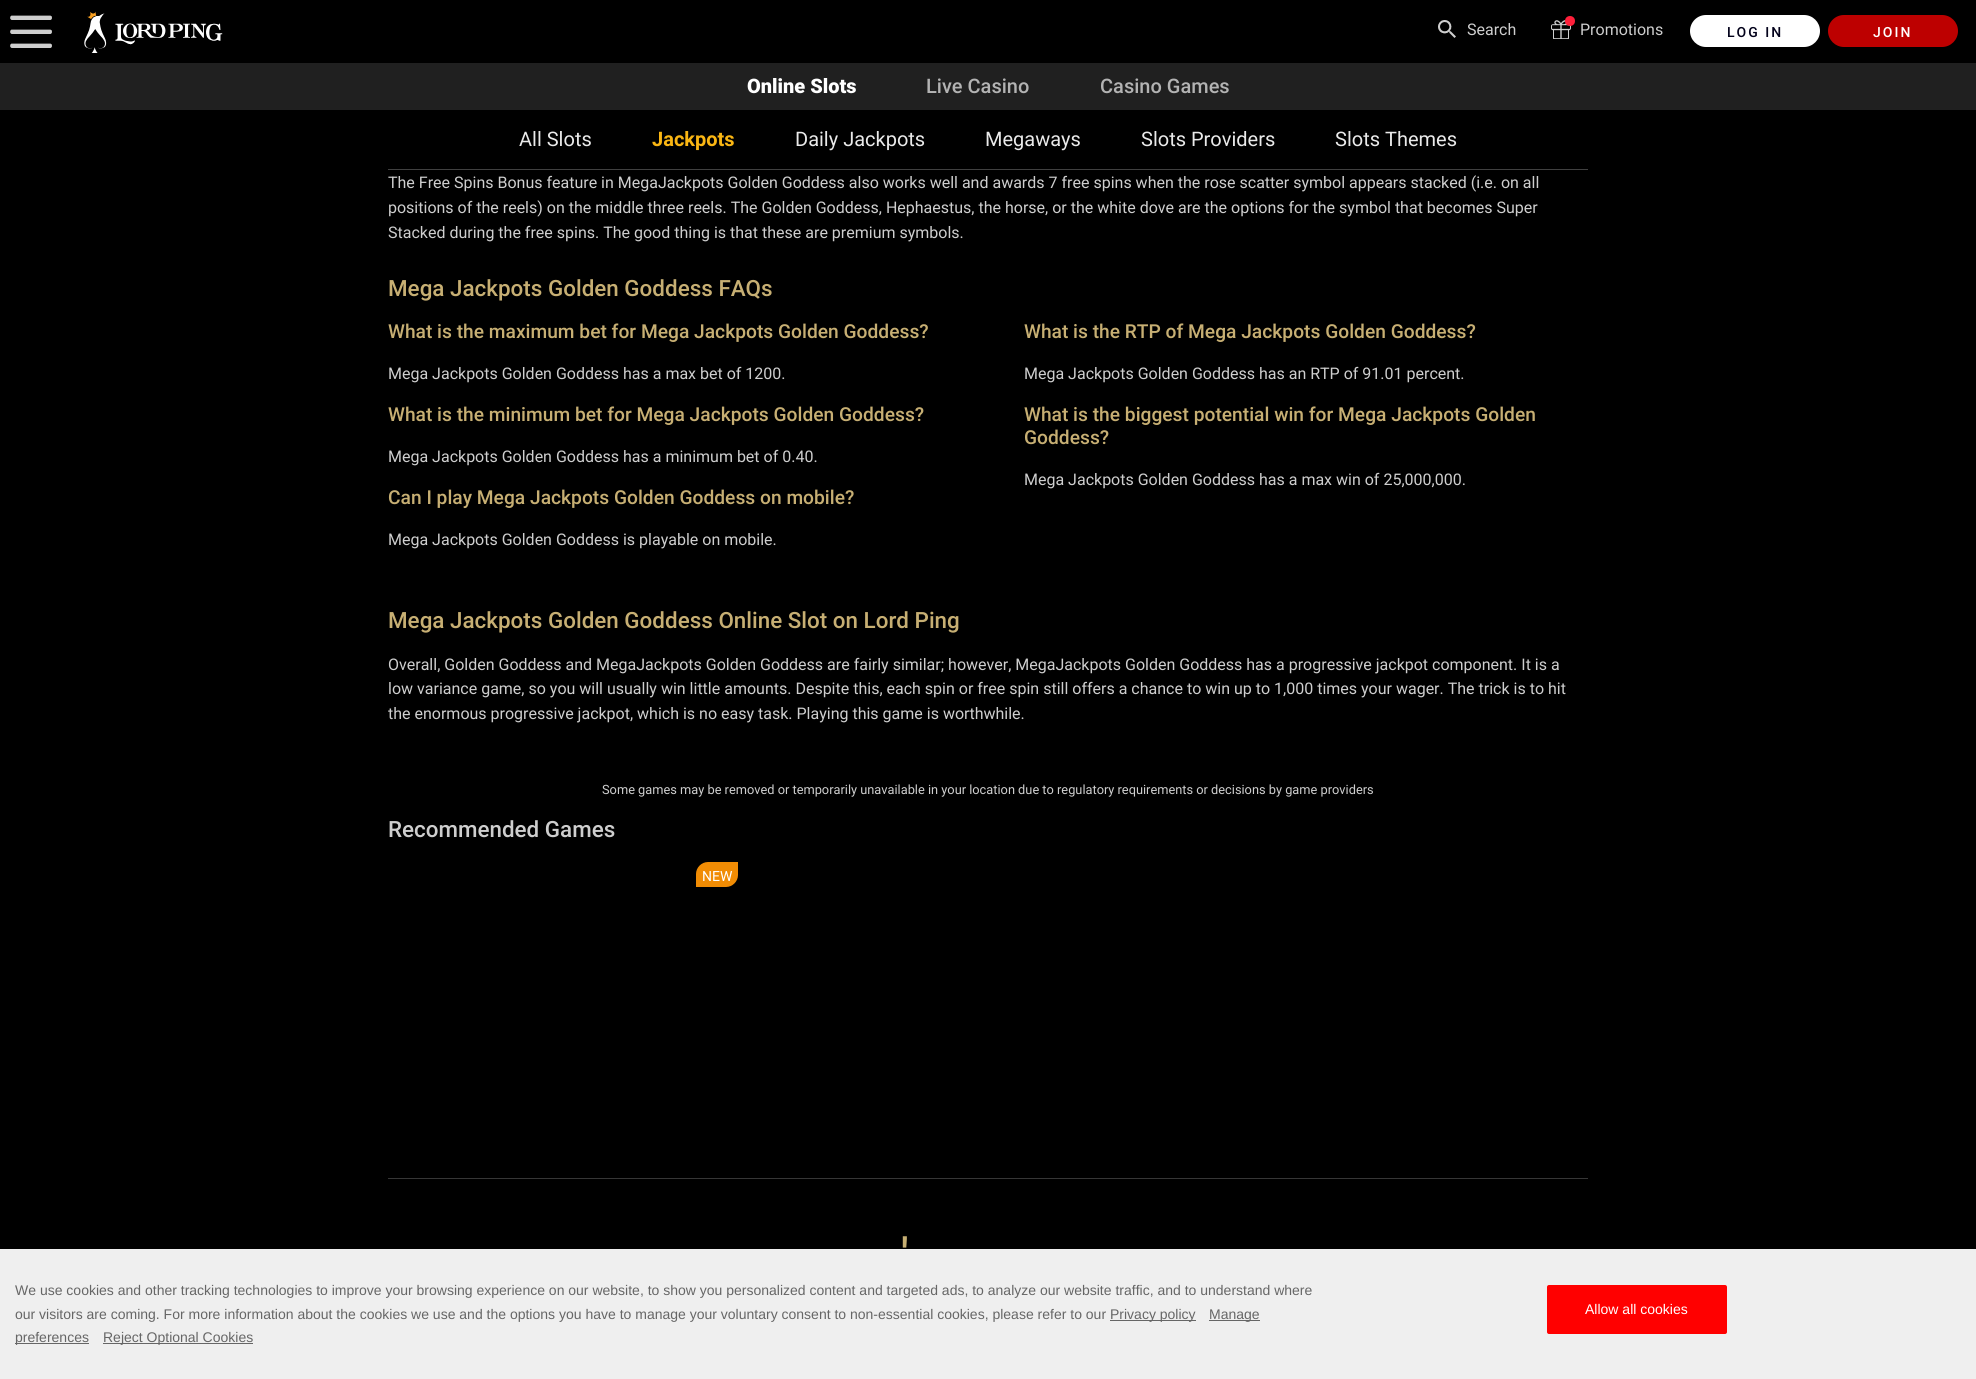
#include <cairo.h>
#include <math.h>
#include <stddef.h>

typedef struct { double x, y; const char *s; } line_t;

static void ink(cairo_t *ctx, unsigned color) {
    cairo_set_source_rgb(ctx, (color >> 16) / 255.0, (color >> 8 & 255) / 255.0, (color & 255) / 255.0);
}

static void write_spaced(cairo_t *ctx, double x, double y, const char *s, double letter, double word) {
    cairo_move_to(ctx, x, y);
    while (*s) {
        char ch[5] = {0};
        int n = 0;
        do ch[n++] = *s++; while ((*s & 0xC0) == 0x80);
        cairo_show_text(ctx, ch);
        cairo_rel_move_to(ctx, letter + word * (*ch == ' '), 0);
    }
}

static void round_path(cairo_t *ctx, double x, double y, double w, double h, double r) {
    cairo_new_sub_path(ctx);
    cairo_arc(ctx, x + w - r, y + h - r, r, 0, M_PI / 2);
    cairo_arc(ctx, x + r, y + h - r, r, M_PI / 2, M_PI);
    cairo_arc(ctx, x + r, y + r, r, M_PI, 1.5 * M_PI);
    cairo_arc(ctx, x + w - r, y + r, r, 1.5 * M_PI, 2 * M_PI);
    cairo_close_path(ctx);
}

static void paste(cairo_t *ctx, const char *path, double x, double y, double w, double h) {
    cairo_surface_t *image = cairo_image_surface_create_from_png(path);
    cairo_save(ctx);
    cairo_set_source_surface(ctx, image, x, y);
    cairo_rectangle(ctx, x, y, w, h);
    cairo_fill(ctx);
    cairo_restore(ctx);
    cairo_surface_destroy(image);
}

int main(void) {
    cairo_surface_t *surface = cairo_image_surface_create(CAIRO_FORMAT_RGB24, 1976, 1379);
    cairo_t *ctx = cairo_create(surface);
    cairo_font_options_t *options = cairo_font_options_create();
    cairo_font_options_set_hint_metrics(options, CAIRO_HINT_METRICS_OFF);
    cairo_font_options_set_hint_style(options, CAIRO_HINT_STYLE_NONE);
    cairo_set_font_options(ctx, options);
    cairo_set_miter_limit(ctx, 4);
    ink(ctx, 0x000000);
    cairo_paint(ctx);
    paste(ctx, "media/1.png", 10, 15, 42, 33);
    paste(ctx, "media/2.png", 84, 11, 139, 42);
    paste(ctx, "media/3.png", 1438, 20, 18, 18);
    cairo_select_font_face(ctx, "Roboto", CAIRO_FONT_SLANT_NORMAL, CAIRO_FONT_WEIGHT_NORMAL);
    cairo_set_font_size(ctx, 16);
    ink(ctx, 0xCECECE);
    cairo_move_to(ctx, 1467, 35);
    cairo_show_text(ctx, "Search");
    paste(ctx, "media/4.png", 1551, 20, 20, 19);
    ink(ctx, 0xFF1F3A);
    cairo_arc(ctx, 1570, 21, 5, 0, 2 * M_PI);
    cairo_fill(ctx);
    ink(ctx, 0xCECECE);
    cairo_move_to(ctx, 1580, 35);
    cairo_show_text(ctx, "Promotions");
    ink(ctx, 0xFFFFFF);
    round_path(ctx, 1690, 15, 130, 32, 16);
    cairo_fill(ctx);
    cairo_select_font_face(ctx, "Roboto Medium", CAIRO_FONT_SLANT_NORMAL, CAIRO_FONT_WEIGHT_NORMAL);
    cairo_set_font_size(ctx, 14);
    ink(ctx, 0x03021B);
    write_spaced(ctx, 1727, 37, "LOG IN", 2, 0);
    ink(ctx, 0xBD0000);
    round_path(ctx, 1828, 15, 130, 32, 16);
    cairo_fill(ctx);
    ink(ctx, 0xFFFFFF);
    write_spaced(ctx, 1873, 37, "JOIN", 2, 0);
    ink(ctx, 0x202020);
    cairo_rectangle(ctx, 0, 63, 1976, 47);
    cairo_fill(ctx);
    cairo_select_font_face(ctx, "Roboto Black", CAIRO_FONT_SLANT_NORMAL, CAIRO_FONT_WEIGHT_NORMAL);
    cairo_set_font_size(ctx, 20);
    ink(ctx, 0xFFFFFF);
    cairo_move_to(ctx, 747, 93);
    cairo_show_text(ctx, "Online Slots");
    cairo_select_font_face(ctx, "Roboto Medium", CAIRO_FONT_SLANT_NORMAL, CAIRO_FONT_WEIGHT_NORMAL);
    ink(ctx, 0xB3B3B3);
    cairo_move_to(ctx, 926, 93);
    cairo_show_text(ctx, "Live Casino");
    cairo_move_to(ctx, 1100, 93);
    cairo_show_text(ctx, "Casino Games");
    ink(ctx, 0x404040);
    cairo_rectangle(ctx, 388, 169, 1200, 1);
    cairo_fill(ctx);
    cairo_select_font_face(ctx, "Roboto", CAIRO_FONT_SLANT_NORMAL, CAIRO_FONT_WEIGHT_NORMAL);
    ink(ctx, 0xEAEAEA);
    cairo_move_to(ctx, 519, 146);
    cairo_show_text(ctx, "All Slots");
    cairo_select_font_face(ctx, "Roboto", CAIRO_FONT_SLANT_NORMAL, CAIRO_FONT_WEIGHT_BOLD);
    ink(ctx, 0xFAB613);
    cairo_move_to(ctx, 652, 146);
    cairo_show_text(ctx, "Jackpots");
    cairo_select_font_face(ctx, "Roboto", CAIRO_FONT_SLANT_NORMAL, CAIRO_FONT_WEIGHT_NORMAL);
    ink(ctx, 0xEAEAEA);
    {
        static const line_t items[] = {
            {795, 146, "Daily Jackpots"},
            {985, 146, "Megaways"},
            {1141, 146, "Slots Providers"},
            {1335, 146, "Slots Themes"},
        };
        for (size_t i = 0; i < sizeof items / sizeof *items; i++) {
            cairo_move_to(ctx, items[i].x, items[i].y);
            cairo_show_text(ctx, items[i].s);
        }
    }
    cairo_set_font_size(ctx, 16);
    ink(ctx, 0xCECECE);
    {
        static const line_t items[] = {
            {388, 188, "The Free Spins Bonus feature in MegaJackpots Golden Goddess also works well and awards 7 free spins when the rose scatter symbol appears stacked (i.e. on all"},
            {388, 213, "positions of the reels) on the middle three reels. The Golden Goddess, Hephaestus, the horse, or the white dove are the options for the symbol that becomes Super"},
            {388, 238, "Stacked during the free spins. The good thing is that these are premium symbols."},
        };
        for (size_t i = 0; i < sizeof items / sizeof *items; i++) {
            cairo_move_to(ctx, items[i].x, items[i].y);
            cairo_show_text(ctx, items[i].s);
        }
    }
    cairo_select_font_face(ctx, "Roboto Medium", CAIRO_FONT_SLANT_NORMAL, CAIRO_FONT_WEIGHT_NORMAL);
    cairo_set_font_size(ctx, 22.4);
    ink(ctx, 0xC7AF73);
    cairo_move_to(ctx, 388, 296);
    cairo_show_text(ctx, "Mega Jackpots Golden Goddess FAQs");
    cairo_set_font_size(ctx, 19.2);
    cairo_move_to(ctx, 388, 338);
    cairo_show_text(ctx, "What is the maximum bet for Mega Jackpots Golden Goddess?");
    cairo_select_font_face(ctx, "Roboto", CAIRO_FONT_SLANT_NORMAL, CAIRO_FONT_WEIGHT_NORMAL);
    cairo_set_font_size(ctx, 16);
    ink(ctx, 0xCECECE);
    cairo_move_to(ctx, 388, 379);
    cairo_show_text(ctx, "Mega Jackpots Golden Goddess has a max bet of 1200.");
    cairo_select_font_face(ctx, "Roboto Medium", CAIRO_FONT_SLANT_NORMAL, CAIRO_FONT_WEIGHT_NORMAL);
    cairo_set_font_size(ctx, 19.2);
    ink(ctx, 0xC7AF73);
    cairo_move_to(ctx, 388, 421);
    cairo_show_text(ctx, "What is the minimum bet for Mega Jackpots Golden Goddess?");
    cairo_select_font_face(ctx, "Roboto", CAIRO_FONT_SLANT_NORMAL, CAIRO_FONT_WEIGHT_NORMAL);
    cairo_set_font_size(ctx, 16);
    ink(ctx, 0xCECECE);
    cairo_move_to(ctx, 388, 462);
    cairo_show_text(ctx, "Mega Jackpots Golden Goddess has a minimum bet of 0.40.");
    cairo_select_font_face(ctx, "Roboto Medium", CAIRO_FONT_SLANT_NORMAL, CAIRO_FONT_WEIGHT_NORMAL);
    cairo_set_font_size(ctx, 19.2);
    ink(ctx, 0xC7AF73);
    cairo_move_to(ctx, 388, 504);
    cairo_show_text(ctx, "Can I play Mega Jackpots Golden Goddess on mobile?");
    cairo_select_font_face(ctx, "Roboto", CAIRO_FONT_SLANT_NORMAL, CAIRO_FONT_WEIGHT_NORMAL);
    cairo_set_font_size(ctx, 16);
    ink(ctx, 0xCECECE);
    cairo_move_to(ctx, 388, 545);
    cairo_show_text(ctx, "Mega Jackpots Golden Goddess is playable on mobile.");
    cairo_select_font_face(ctx, "Roboto Medium", CAIRO_FONT_SLANT_NORMAL, CAIRO_FONT_WEIGHT_NORMAL);
    cairo_set_font_size(ctx, 19.2);
    ink(ctx, 0xC7AF73);
    cairo_move_to(ctx, 1024, 338);
    cairo_show_text(ctx, "What is the RTP of Mega Jackpots Golden Goddess?");
    cairo_select_font_face(ctx, "Roboto", CAIRO_FONT_SLANT_NORMAL, CAIRO_FONT_WEIGHT_NORMAL);
    cairo_set_font_size(ctx, 16);
    ink(ctx, 0xCECECE);
    cairo_move_to(ctx, 1024, 379);
    cairo_show_text(ctx, "Mega Jackpots Golden Goddess has an RTP of 91.01 percent.");
    cairo_select_font_face(ctx, "Roboto Medium", CAIRO_FONT_SLANT_NORMAL, CAIRO_FONT_WEIGHT_NORMAL);
    cairo_set_font_size(ctx, 19.2);
    ink(ctx, 0xC7AF73);
    cairo_move_to(ctx, 1024, 421);
    cairo_show_text(ctx, "What is the biggest potential win for Mega Jackpots Golden");
    cairo_move_to(ctx, 1024, 444);
    cairo_show_text(ctx, "Goddess?");
    cairo_select_font_face(ctx, "Roboto", CAIRO_FONT_SLANT_NORMAL, CAIRO_FONT_WEIGHT_NORMAL);
    cairo_set_font_size(ctx, 16);
    ink(ctx, 0xCECECE);
    cairo_move_to(ctx, 1024, 485);
    cairo_show_text(ctx, "Mega Jackpots Golden Goddess has a max win of 25,000,000.");
    cairo_select_font_face(ctx, "Roboto Medium", CAIRO_FONT_SLANT_NORMAL, CAIRO_FONT_WEIGHT_NORMAL);
    cairo_set_font_size(ctx, 22.4);
    ink(ctx, 0xC7AF73);
    cairo_move_to(ctx, 388, 628);
    cairo_show_text(ctx, "Mega Jackpots Golden Goddess Online Slot on Lord Ping");
    cairo_select_font_face(ctx, "Roboto", CAIRO_FONT_SLANT_NORMAL, CAIRO_FONT_WEIGHT_NORMAL);
    cairo_set_font_size(ctx, 16);
    ink(ctx, 0xCECECE);
    {
        static const line_t items[] = {
            {388, 670, "Overall, Golden Goddess and MegaJackpots Golden Goddess are fairly similar; however, MegaJackpots Golden Goddess has a progressive jackpot component. It is a"},
            {388, 694, "low variance game, so you will usually win little amounts. Despite this, each spin or free spin still offers a chance to win up to 1,000 times your wager. The trick is to hit"},
            {388, 719, "the enormous progressive jackpot, which is no easy task. Playing this game is worthwhile."},
        };
        for (size_t i = 0; i < sizeof items / sizeof *items; i++) {
            cairo_move_to(ctx, items[i].x, items[i].y);
            cairo_show_text(ctx, items[i].s);
        }
    }
    cairo_set_font_size(ctx, 12.8);
    cairo_move_to(ctx, 602, 794);
    cairo_show_text(ctx, "Some games may be removed or temporarily unavailable in your location due to regulatory requirements or decisions by game providers");
    cairo_select_font_face(ctx, "Roboto Medium", CAIRO_FONT_SLANT_NORMAL, CAIRO_FONT_WEIGHT_NORMAL);
    cairo_set_font_size(ctx, 22.4);
    cairo_move_to(ctx, 388, 837);
    cairo_show_text(ctx, "Recommended Games");
    ink(ctx, 0xF18C04);
    cairo_new_path(ctx);
    cairo_move_to(ctx, 708, 862);
    cairo_line_to(ctx, 738, 862);
    cairo_line_to(ctx, 738, 875);
    cairo_curve_to(ctx, 738, 881.5, 732.5, 887, 726, 887);
    cairo_line_to(ctx, 696, 887);
    cairo_line_to(ctx, 696, 874);
    cairo_curve_to(ctx, 696, 867.5, 701.5, 862, 708, 862);
    cairo_close_path(ctx);
    cairo_fill(ctx);
    cairo_select_font_face(ctx, "Roboto", CAIRO_FONT_SLANT_NORMAL, CAIRO_FONT_WEIGHT_NORMAL);
    cairo_set_font_size(ctx, 14);
    ink(ctx, 0xFFFFFF);
    cairo_move_to(ctx, 702, 881);
    cairo_show_text(ctx, "NEW");
    ink(ctx, 0x363636);
    cairo_rectangle(ctx, 388, 1178, 1200, 1);
    cairo_fill(ctx);
    cairo_select_font_face(ctx, "Roboto Medium", CAIRO_FONT_SLANT_NORMAL, CAIRO_FONT_WEIGHT_NORMAL);
    cairo_set_font_size(ctx, 45);
    ink(ctx, 0xC7AF73);
    cairo_move_to(ctx, 901, 1270);
    cairo_show_text(ctx, "'");
    ink(ctx, 0xEFEFEF);
    cairo_rectangle(ctx, 0, 1249, 1976, 130);
    cairo_fill(ctx);
    cairo_select_font_face(ctx, "Liberation Sans", CAIRO_FONT_SLANT_NORMAL, CAIRO_FONT_WEIGHT_NORMAL);
    cairo_set_font_size(ctx, 14);
    ink(ctx, 0x666666);
    cairo_move_to(ctx, 15, 1295);
    cairo_show_text(ctx, "We use cookies and other tracking technologies to improve your browsing experience on our website, to show you personalized content and targeted ads, to analyze our website traffic, and to understand where");
    cairo_move_to(ctx, 15, 1319);
    cairo_show_text(ctx, "our visitors are coming. For more information about the cookies we use and the options you have to manage your voluntary consent to non-essential cookies, please refer to our");
    cairo_rectangle(ctx, 1110, 1320, 86, 1);
    cairo_fill(ctx);
    cairo_move_to(ctx, 1110, 1319);
    cairo_show_text(ctx, "Privacy policy");
    cairo_rectangle(ctx, 1209, 1320, 51, 1);
    cairo_fill(ctx);
    cairo_move_to(ctx, 1209, 1319);
    cairo_show_text(ctx, "Manage");
    cairo_rectangle(ctx, 15, 1343, 74, 1);
    cairo_fill(ctx);
    cairo_move_to(ctx, 15, 1342);
    cairo_show_text(ctx, "preferences");
    cairo_rectangle(ctx, 103, 1343, 150, 1);
    cairo_fill(ctx);
    cairo_move_to(ctx, 103, 1342);
    cairo_show_text(ctx, "Reject Optional Cookies");
    ink(ctx, 0xFF0000);
    round_path(ctx, 1547, 1285, 180, 49, 2);
    cairo_fill(ctx);
    ink(ctx, 0xFFFFFF);
    cairo_move_to(ctx, 1585, 1314);
    cairo_show_text(ctx, "Allow all cookies");
    cairo_surface_write_to_png(surface, "image.png");
    cairo_font_options_destroy(options);
    cairo_destroy(ctx);
    cairo_surface_destroy(surface);
    return 0;
}
